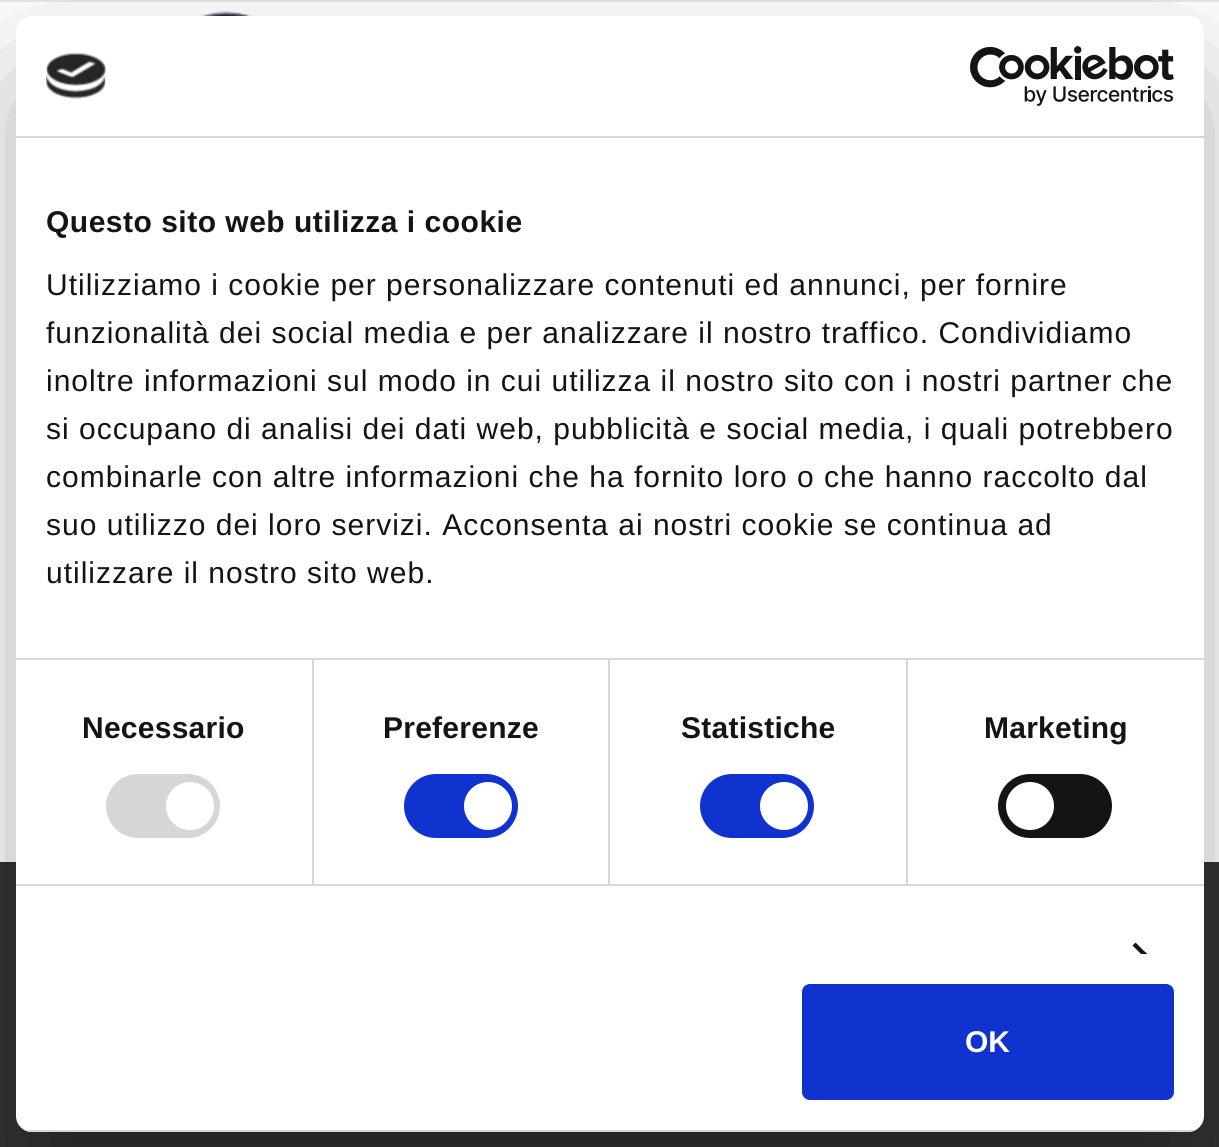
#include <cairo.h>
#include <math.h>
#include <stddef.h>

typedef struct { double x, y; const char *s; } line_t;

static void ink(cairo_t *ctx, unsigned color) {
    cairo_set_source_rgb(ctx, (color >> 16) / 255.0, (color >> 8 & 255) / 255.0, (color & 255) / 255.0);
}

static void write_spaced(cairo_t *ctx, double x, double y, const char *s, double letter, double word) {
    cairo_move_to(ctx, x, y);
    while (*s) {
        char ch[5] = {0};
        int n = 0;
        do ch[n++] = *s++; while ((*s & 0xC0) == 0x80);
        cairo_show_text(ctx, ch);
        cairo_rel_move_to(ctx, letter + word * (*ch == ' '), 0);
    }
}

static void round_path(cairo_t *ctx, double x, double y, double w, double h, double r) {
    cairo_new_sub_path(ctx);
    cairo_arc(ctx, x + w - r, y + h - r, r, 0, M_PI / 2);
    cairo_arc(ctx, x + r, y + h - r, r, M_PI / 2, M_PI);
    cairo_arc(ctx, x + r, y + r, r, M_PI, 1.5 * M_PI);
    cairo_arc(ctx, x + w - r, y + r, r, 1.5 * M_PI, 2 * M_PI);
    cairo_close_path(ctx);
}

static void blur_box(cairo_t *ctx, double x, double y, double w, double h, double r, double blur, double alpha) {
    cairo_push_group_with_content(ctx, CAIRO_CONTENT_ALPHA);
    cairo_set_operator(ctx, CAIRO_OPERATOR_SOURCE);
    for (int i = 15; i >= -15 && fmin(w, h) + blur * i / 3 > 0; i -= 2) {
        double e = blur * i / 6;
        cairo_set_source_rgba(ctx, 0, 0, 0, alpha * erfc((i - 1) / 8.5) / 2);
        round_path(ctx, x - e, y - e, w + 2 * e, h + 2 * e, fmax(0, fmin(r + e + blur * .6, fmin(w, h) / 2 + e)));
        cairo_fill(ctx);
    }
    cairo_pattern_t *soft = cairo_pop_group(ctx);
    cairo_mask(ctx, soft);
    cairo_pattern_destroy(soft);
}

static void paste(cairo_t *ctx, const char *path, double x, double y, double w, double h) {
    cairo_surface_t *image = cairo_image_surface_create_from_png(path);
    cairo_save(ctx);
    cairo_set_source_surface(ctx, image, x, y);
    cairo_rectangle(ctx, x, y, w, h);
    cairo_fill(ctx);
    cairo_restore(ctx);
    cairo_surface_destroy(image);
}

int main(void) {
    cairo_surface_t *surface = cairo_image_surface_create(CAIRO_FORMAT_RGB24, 1219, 1147);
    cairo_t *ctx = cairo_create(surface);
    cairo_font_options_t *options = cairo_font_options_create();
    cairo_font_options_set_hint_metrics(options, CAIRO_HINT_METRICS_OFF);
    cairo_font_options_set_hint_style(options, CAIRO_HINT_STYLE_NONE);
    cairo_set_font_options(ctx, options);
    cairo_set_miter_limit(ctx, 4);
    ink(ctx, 0xFFFFFF);
    cairo_paint(ctx);
    ink(ctx, 0xE7E7E7);
    cairo_rectangle(ctx, 0, 0, 1219, 2);
    cairo_fill(ctx);
    paste(ctx, "media/1.png", 198, 11, 56, 5);
    ink(ctx, 0x343434);
    cairo_rectangle(ctx, 0, 862, 1219, 285);
    cairo_fill(ctx);
    ink(ctx, 0x000000);
    blur_box(ctx, 16, 80, 1188, 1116, 16, 68, 0.3);
    ink(ctx, 0xFFFFFF);
    round_path(ctx, 16, 16, 1188, 1116, 16);
    cairo_fill(ctx);
    ink(ctx, 0xD6D6D6);
    cairo_rectangle(ctx, 16, 136, 1188, 2);
    cairo_fill(ctx);
    paste(ctx, "media/2.png", 46, 53, 60, 46);
    paste(ctx, "media/3.png", 970, 46, 204, 60);
    cairo_rectangle(ctx, 16, 658, 1188, 2);
    cairo_fill(ctx);
    cairo_select_font_face(ctx, "Liberation Sans", CAIRO_FONT_SLANT_NORMAL, CAIRO_FONT_WEIGHT_BOLD);
    cairo_set_font_size(ctx, 30);
    ink(ctx, 0x141414);
    write_spaced(ctx, 46, 232, "Questo sito web utilizza i cookie", 0.5, 0);
    cairo_select_font_face(ctx, "Liberation Sans", CAIRO_FONT_SLANT_NORMAL, CAIRO_FONT_WEIGHT_NORMAL);
    {
        static const line_t items[] = {
            {46, 295, "Utilizziamo i cookie per personalizzare contenuti ed annunci, per fornire"},
            {46, 343, "funzionalità dei social media e per analizzare il nostro traffico. Condividiamo"},
            {46, 391, "inoltre informazioni sul modo in cui utilizza il nostro sito con i nostri partner che"},
            {46, 439, "si occupano di analisi dei dati web, pubblicità e social media, i quali potrebbero"},
            {46, 487, "combinarle con altre informazioni che ha fornito loro o che hanno raccolto dal"},
            {46, 535, "suo utilizzo dei loro servizi. Acconsenta ai nostri cookie se continua ad"},
            {46, 583, "utilizzare il nostro sito web."},
        };
        for (size_t i = 0; i < sizeof items / sizeof *items; i++) {
            write_spaced(ctx, items[i].x, items[i].y, items[i].s, 1, 0);
        }
    }
    ink(ctx, 0xD6D6D6);
    cairo_rectangle(ctx, 16, 884, 1188, 2);
    cairo_fill(ctx);
    cairo_rectangle(ctx, 312, 660, 2, 224);
    cairo_fill(ctx);
    cairo_select_font_face(ctx, "Liberation Sans", CAIRO_FONT_SLANT_NORMAL, CAIRO_FONT_WEIGHT_BOLD);
    ink(ctx, 0x141414);
    write_spaced(ctx, 82, 738, "Necessario", 0.25, 0);
    ink(ctx, 0xD6D6D6);
    round_path(ctx, 106, 774, 114, 64, 32);
    cairo_fill(ctx);
    ink(ctx, 0xFFFFFF);
    cairo_arc(ctx, 190, 806, 24, 0, 2 * M_PI);
    cairo_fill(ctx);
    ink(ctx, 0xD6D6D6);
    cairo_rectangle(ctx, 608, 660, 2, 224);
    cairo_fill(ctx);
    ink(ctx, 0x141414);
    write_spaced(ctx, 383, 738, "Preferenze", 0.25, 0);
    ink(ctx, 0x1032CF);
    round_path(ctx, 404, 774, 114, 64, 32);
    cairo_fill(ctx);
    ink(ctx, 0xFFFFFF);
    cairo_arc(ctx, 488, 806, 24, 0, 2 * M_PI);
    cairo_fill(ctx);
    ink(ctx, 0xD6D6D6);
    cairo_rectangle(ctx, 906, 660, 2, 224);
    cairo_fill(ctx);
    ink(ctx, 0x141414);
    write_spaced(ctx, 681, 738, "Statistiche", 0.25, 0);
    ink(ctx, 0x1032CF);
    round_path(ctx, 700, 774, 114, 64, 32);
    cairo_fill(ctx);
    ink(ctx, 0xFFFFFF);
    cairo_arc(ctx, 784, 806, 24, 0, 2 * M_PI);
    cairo_fill(ctx);
    ink(ctx, 0x141414);
    write_spaced(ctx, 984, 738, "Marketing", 0.25, 0);
    round_path(ctx, 998, 774, 114, 64, 32);
    cairo_fill(ctx);
    ink(ctx, 0xFFFFFF);
    cairo_arc(ctx, 1030, 806, 24, 0, 2 * M_PI);
    cairo_fill(ctx);
    cairo_save(ctx);
    cairo_rectangle(ctx, 16, 138, 1188, 816);
    cairo_clip(ctx);
    ink(ctx, 0x141414);
    cairo_new_path(ctx);
    cairo_move_to(ctx, 1135.5, 942.5);
    cairo_line_to(ctx, 1147.5, 954.5);
    cairo_line_to(ctx, 1144.5, 957.5);
    cairo_line_to(ctx, 1132.5, 945.5);
    cairo_close_path(ctx);
    cairo_fill(ctx);
    cairo_new_path(ctx);
    cairo_move_to(ctx, 1144.5, 951.5);
    cairo_line_to(ctx, 1147.5, 954.5);
    cairo_line_to(ctx, 1135.5, 966.5);
    cairo_line_to(ctx, 1132.5, 963.5);
    cairo_close_path(ctx);
    cairo_fill(ctx);
    cairo_restore(ctx);
    cairo_save(ctx);
    round_path(ctx, 16, 16, 1188, 1116, 16);
    cairo_clip(ctx);
    ink(ctx, 0xD6D6D6);
    cairo_rectangle(ctx, 16, 1130, 1188, 2);
    cairo_fill(ctx);
    cairo_restore(ctx);
    ink(ctx, 0x1032CF);
    round_path(ctx, 804, 986, 368, 112, 6);
    cairo_fill_preserve(ctx);
    cairo_set_line_width(ctx, 4);
    cairo_stroke(ctx);
    ink(ctx, 0xFFFFFF);
    cairo_move_to(ctx, 965, 1052);
    cairo_show_text(ctx, "OK");
    cairo_surface_write_to_png(surface, "image.png");
    cairo_font_options_destroy(options);
    cairo_destroy(ctx);
    cairo_surface_destroy(surface);
    return 0;
}
